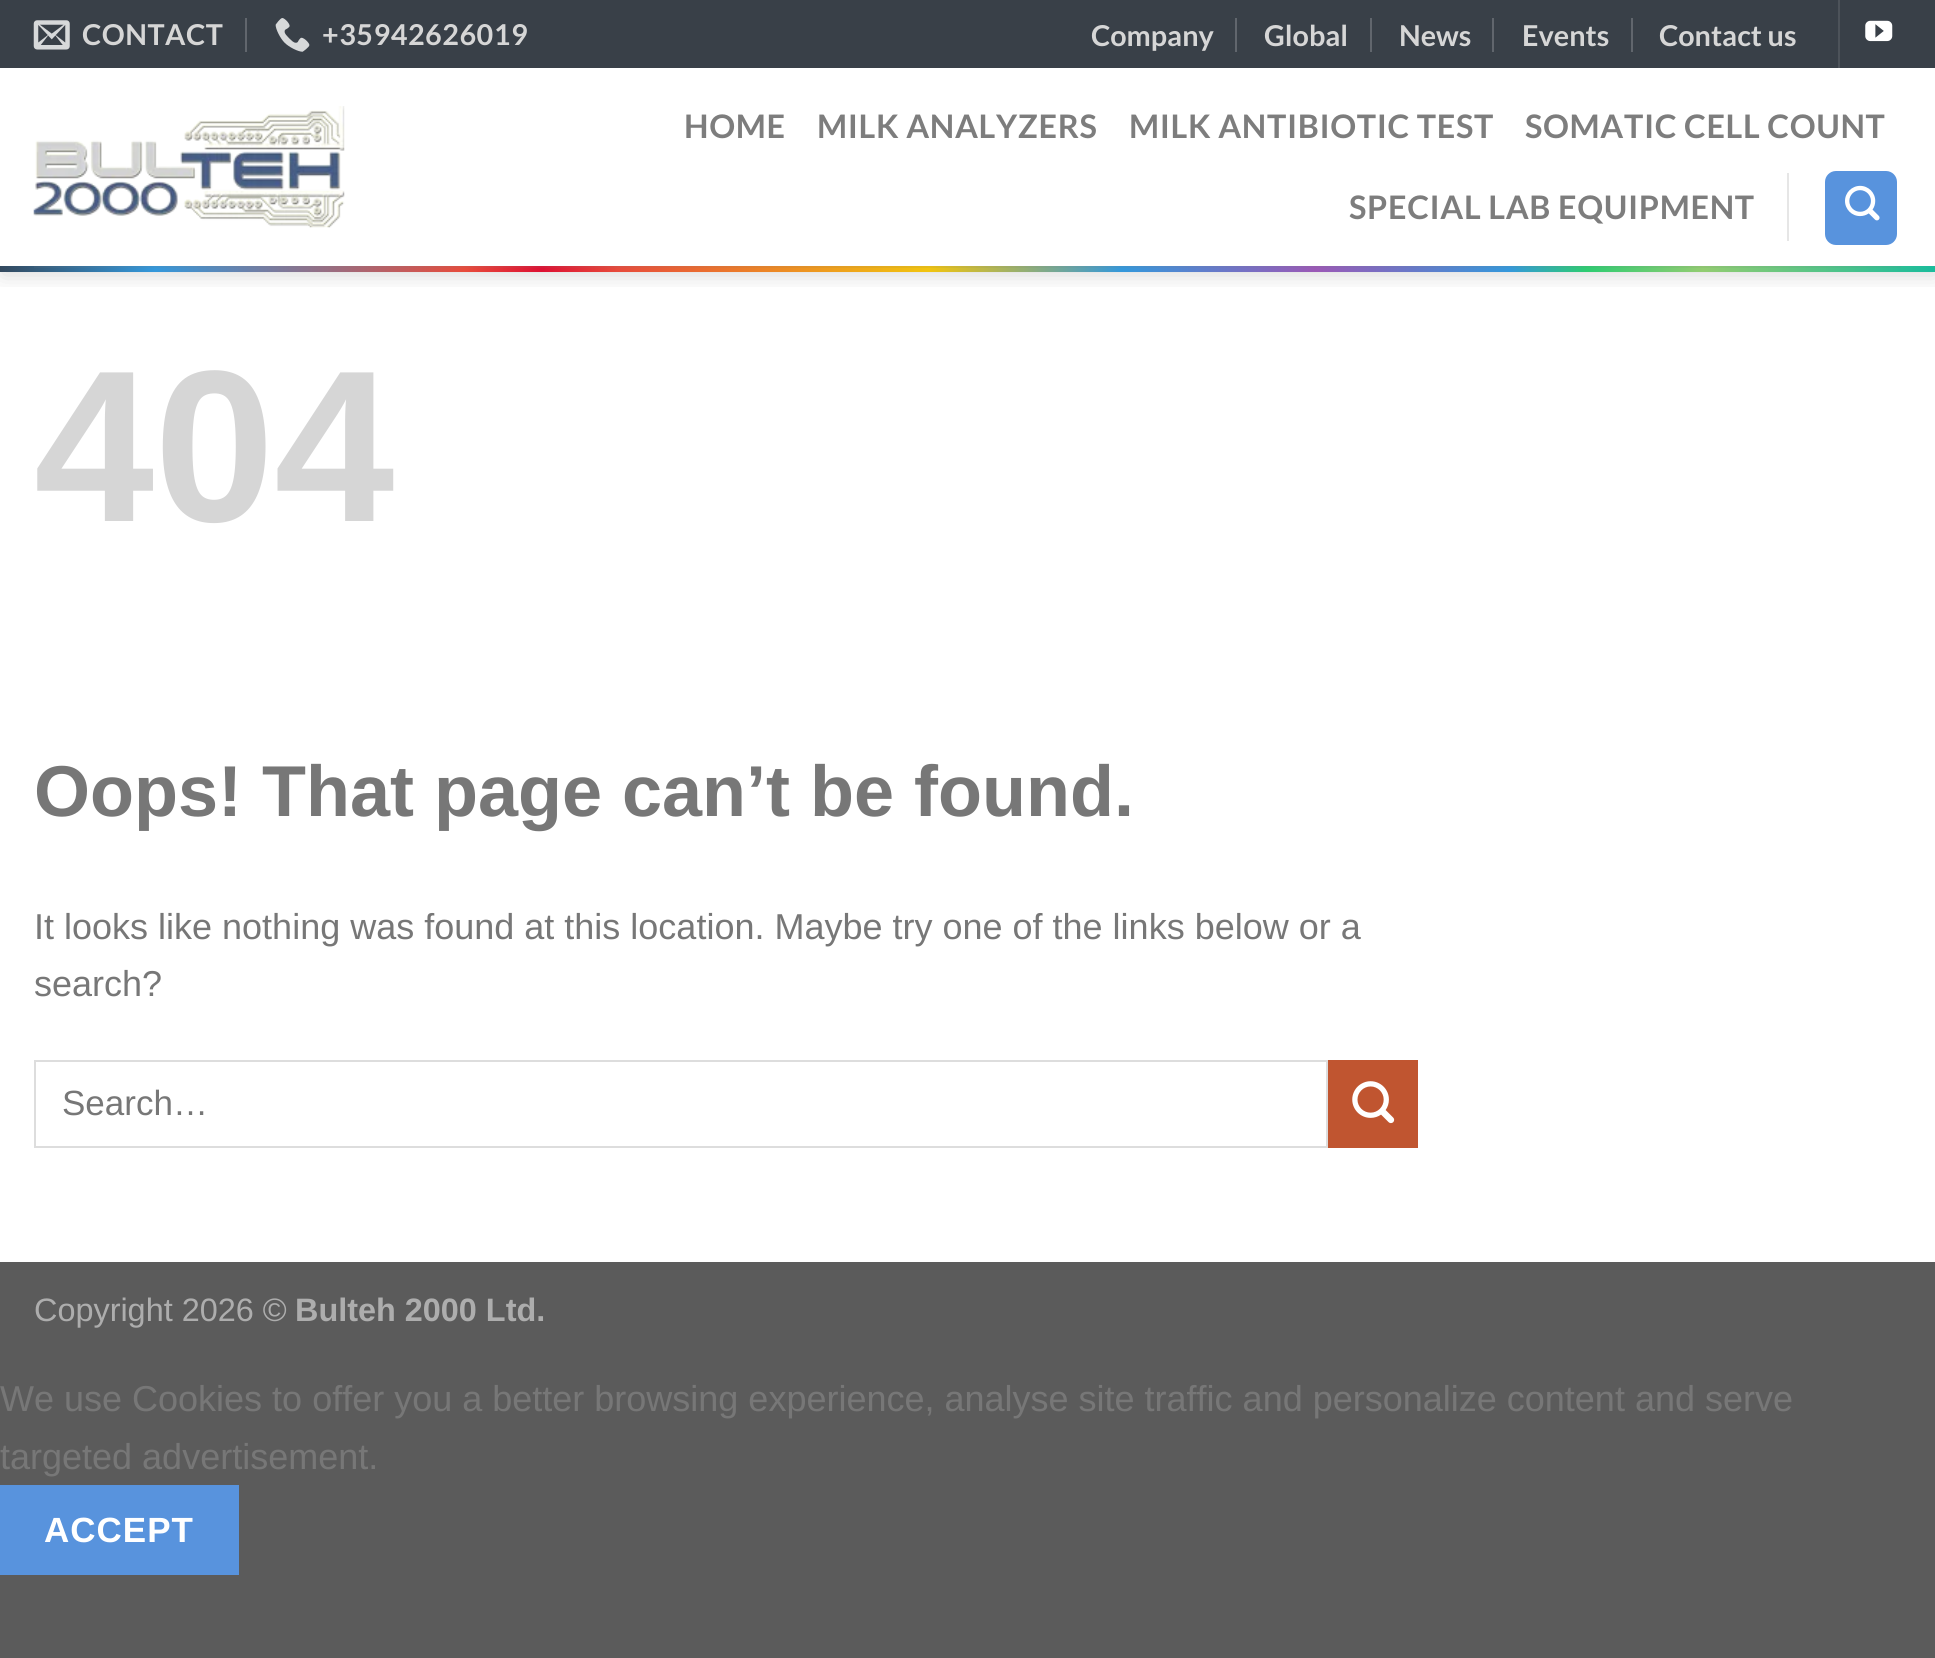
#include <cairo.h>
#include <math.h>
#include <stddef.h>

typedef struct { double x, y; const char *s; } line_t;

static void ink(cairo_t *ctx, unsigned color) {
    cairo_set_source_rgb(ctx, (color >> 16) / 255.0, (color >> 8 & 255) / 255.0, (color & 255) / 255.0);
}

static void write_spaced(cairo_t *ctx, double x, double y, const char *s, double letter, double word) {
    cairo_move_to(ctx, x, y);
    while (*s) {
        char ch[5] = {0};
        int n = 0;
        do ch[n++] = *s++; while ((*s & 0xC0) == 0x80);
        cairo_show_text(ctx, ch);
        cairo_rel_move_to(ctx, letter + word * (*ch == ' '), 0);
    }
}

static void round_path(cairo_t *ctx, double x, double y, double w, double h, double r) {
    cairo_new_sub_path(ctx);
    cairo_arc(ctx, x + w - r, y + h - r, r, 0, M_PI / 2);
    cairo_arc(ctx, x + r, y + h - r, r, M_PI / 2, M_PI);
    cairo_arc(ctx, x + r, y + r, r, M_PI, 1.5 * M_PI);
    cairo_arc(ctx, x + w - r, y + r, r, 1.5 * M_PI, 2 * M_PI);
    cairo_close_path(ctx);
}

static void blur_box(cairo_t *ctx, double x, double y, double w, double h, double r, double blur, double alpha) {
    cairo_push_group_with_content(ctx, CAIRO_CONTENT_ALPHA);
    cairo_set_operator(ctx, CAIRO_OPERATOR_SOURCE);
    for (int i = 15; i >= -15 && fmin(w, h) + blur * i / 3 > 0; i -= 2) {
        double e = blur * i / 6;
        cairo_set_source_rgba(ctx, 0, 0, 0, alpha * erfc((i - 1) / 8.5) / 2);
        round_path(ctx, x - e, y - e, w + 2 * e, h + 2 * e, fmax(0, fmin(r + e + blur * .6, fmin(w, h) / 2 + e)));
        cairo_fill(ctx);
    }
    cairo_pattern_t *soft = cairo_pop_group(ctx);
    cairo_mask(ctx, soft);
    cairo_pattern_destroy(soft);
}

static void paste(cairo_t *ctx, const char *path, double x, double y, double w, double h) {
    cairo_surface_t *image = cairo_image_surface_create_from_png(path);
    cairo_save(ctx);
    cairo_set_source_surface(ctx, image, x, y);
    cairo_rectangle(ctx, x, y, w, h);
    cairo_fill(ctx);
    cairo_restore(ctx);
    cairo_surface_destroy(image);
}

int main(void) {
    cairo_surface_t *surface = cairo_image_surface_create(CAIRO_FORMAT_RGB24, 1935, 1658);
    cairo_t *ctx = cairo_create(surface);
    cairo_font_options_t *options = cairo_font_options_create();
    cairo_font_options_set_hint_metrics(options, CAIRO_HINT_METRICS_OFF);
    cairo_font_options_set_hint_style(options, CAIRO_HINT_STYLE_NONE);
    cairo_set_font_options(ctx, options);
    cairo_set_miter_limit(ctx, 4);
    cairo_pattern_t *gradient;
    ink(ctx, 0x5B5B5B);
    cairo_paint(ctx);
    ink(ctx, 0xFFFFFF);
    cairo_rectangle(ctx, 0, 68, 1935, 1194);
    cairo_fill(ctx);
    cairo_save(ctx);
    cairo_rectangle(ctx, 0, 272, 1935, 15);
    cairo_clip(ctx);
    ink(ctx, 0x000000);
    blur_box(ctx, 2, 2, 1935, 273, 0, 11, 0.15);
    cairo_restore(ctx);
    ink(ctx, 0x394048);
    cairo_rectangle(ctx, 0, 0, 1935, 68);
    cairo_fill(ctx);
    paste(ctx, "media/1.png", 33, 20, 37, 30);
    cairo_select_font_face(ctx, "Lato", CAIRO_FONT_SLANT_NORMAL, CAIRO_FONT_WEIGHT_BOLD);
    cairo_set_font_size(ctx, 28.75);
    ink(ctx, 0xD6D6D6);
    write_spaced(ctx, 82, 45, "CONTACT", 0.5, 0);
    ink(ctx, 0x61666D);
    cairo_rectangle(ctx, 245, 18, 2, 34);
    cairo_fill(ctx);
    paste(ctx, "media/2.png", 275, 18, 35, 34);
    ink(ctx, 0xD6D6D6);
    write_spaced(ctx, 322, 45, "+35942626019", 0.5, 0);
    cairo_move_to(ctx, 1091, 46);
    cairo_show_text(ctx, "Company");
    ink(ctx, 0x61666D);
    cairo_rectangle(ctx, 1235, 18, 2, 34);
    cairo_fill(ctx);
    ink(ctx, 0xD6D6D6);
    cairo_move_to(ctx, 1264, 46);
    cairo_show_text(ctx, "Global");
    ink(ctx, 0x61666D);
    cairo_rectangle(ctx, 1370, 18, 2, 34);
    cairo_fill(ctx);
    ink(ctx, 0xD6D6D6);
    cairo_move_to(ctx, 1399, 46);
    cairo_show_text(ctx, "News");
    ink(ctx, 0x61666D);
    cairo_rectangle(ctx, 1492, 18, 2, 34);
    cairo_fill(ctx);
    ink(ctx, 0xD6D6D6);
    cairo_move_to(ctx, 1522, 46);
    cairo_show_text(ctx, "Events");
    ink(ctx, 0x61666D);
    cairo_rectangle(ctx, 1631, 18, 2, 34);
    cairo_fill(ctx);
    ink(ctx, 0xD6D6D6);
    cairo_move_to(ctx, 1659, 46);
    cairo_show_text(ctx, "Contact us");
    ink(ctx, 0x4D535A);
    cairo_rectangle(ctx, 1838, 0, 2, 68);
    cairo_fill(ctx);
    paste(ctx, "media/3.png", 1865, 20, 28, 22);
    gradient = cairo_pattern_create_linear(1935, 269, 0, 269);
    cairo_pattern_add_color_stop_rgba(gradient, 0, 0.102, 0.737, 0.612, 1);
    cairo_pattern_add_color_stop_rgba(gradient, 0.12, 0.573, 0.8, 0.443, 1);
    cairo_pattern_add_color_stop_rgba(gradient, 0.18, 0.18, 0.8, 0.443, 1);
    cairo_pattern_add_color_stop_rgba(gradient, 0.22, 0.204, 0.596, 0.859, 1);
    cairo_pattern_add_color_stop_rgba(gradient, 0.32, 0.608, 0.349, 0.714, 1);
    cairo_pattern_add_color_stop_rgba(gradient, 0.42, 0.204, 0.596, 0.859, 1);
    cairo_pattern_add_color_stop_rgba(gradient, 0.52, 0.945, 0.769, 0.059, 1);
    cairo_pattern_add_color_stop_rgba(gradient, 0.68, 0.906, 0.298, 0.235, 1);
    cairo_pattern_add_color_stop_rgba(gradient, 0.72, 0.867, 0.067, 0.2, 1);
    cairo_pattern_add_color_stop_rgba(gradient, 0.76, 0.906, 0.298, 0.235, 1);
    cairo_pattern_add_color_stop_rgba(gradient, 0.92, 0.204, 0.596, 0.859, 1);
    cairo_pattern_add_color_stop_rgba(gradient, 1, 0.204, 0.286, 0.369, 1);
    cairo_set_source(ctx, gradient);
    cairo_pattern_destroy(gradient);
    cairo_rectangle(ctx, 0, 266, 1935, 6);
    cairo_fill(ctx);
    gradient = cairo_pattern_create_linear(1935, 269, 0, 269);
    cairo_pattern_add_color_stop_rgba(gradient, 0, 0.137, 0.71, 0.596, 1);
    cairo_pattern_add_color_stop_rgba(gradient, 0.12, 0.561, 0.769, 0.447, 1);
    cairo_pattern_add_color_stop_rgba(gradient, 0.18, 0.208, 0.769, 0.447, 1);
    cairo_pattern_add_color_stop_rgba(gradient, 0.22, 0.231, 0.584, 0.82, 1);
    cairo_pattern_add_color_stop_rgba(gradient, 0.32, 0.592, 0.361, 0.69, 1);
    cairo_pattern_add_color_stop_rgba(gradient, 0.42, 0.231, 0.584, 0.82, 1);
    cairo_pattern_add_color_stop_rgba(gradient, 0.52, 0.898, 0.737, 0.098, 1);
    cairo_pattern_add_color_stop_rgba(gradient, 0.68, 0.863, 0.314, 0.259, 1);
    cairo_pattern_add_color_stop_rgba(gradient, 0.72, 0.827, 0.106, 0.227, 1);
    cairo_pattern_add_color_stop_rgba(gradient, 0.76, 0.863, 0.314, 0.259, 1);
    cairo_pattern_add_color_stop_rgba(gradient, 0.92, 0.231, 0.584, 0.82, 1);
    cairo_pattern_add_color_stop_rgba(gradient, 1, 0.231, 0.306, 0.38, 1);
    cairo_set_source(ctx, gradient);
    cairo_pattern_destroy(gradient);
    cairo_rectangle(ctx, 34, 266, 1867, 2);
    cairo_fill(ctx);
    paste(ctx, "media/4.png", 33, 106, 312, 122);
    cairo_set_font_size(ctx, 32.4);
    ink(ctx, 0x7D7D7D);
    {
        static const line_t items[] = {
            {684, 138, "HOME"},
            {817, 138, "MILK ANALYZERS"},
            {1129, 138, "MILK ANTIBIOTIC TEST"},
            {1525, 138, "SOMATIC CELL COUNT"},
            {1349, 219, "SPECIAL LAB EQUIPMENT"},
        };
        for (size_t i = 0; i < sizeof items / sizeof *items; i++) {
            write_spaced(ctx, items[i].x, items[i].y, items[i].s, 0.65, 0);
        }
    }
    ink(ctx, 0xE6E6E6);
    cairo_rectangle(ctx, 1787, 173, 2, 68);
    cairo_fill(ctx);
    ink(ctx, 0x5893DD);
    round_path(ctx, 1825, 171, 72, 74, 11);
    cairo_fill(ctx);
    paste(ctx, "media/5.png", 1845, 185, 35, 36);
    cairo_select_font_face(ctx, "Liberation Sans", CAIRO_FONT_SLANT_NORMAL, CAIRO_FONT_WEIGHT_BOLD);
    cairo_set_font_size(ctx, 216);
    ink(ctx, 0xD6D6D6);
    cairo_move_to(ctx, 34, 521);
    cairo_show_text(ctx, "404");
    cairo_set_font_size(ctx, 72);
    ink(ctx, 0x777777);
    cairo_move_to(ctx, 34, 816);
    cairo_show_text(ctx, "Oops! That page can’t be found.");
    cairo_select_font_face(ctx, "Liberation Sans", CAIRO_FONT_SLANT_NORMAL, CAIRO_FONT_WEIGHT_NORMAL);
    cairo_set_font_size(ctx, 36);
    cairo_move_to(ctx, 34, 939);
    cairo_show_text(ctx, "It looks like nothing was found at this location. Maybe try one of the links below or a");
    cairo_move_to(ctx, 34, 996);
    cairo_show_text(ctx, "search?");
    cairo_rectangle(ctx, 35, 1061, 1292, 86);
    ink(ctx, 0xDDDDDD);
    cairo_stroke(ctx);
    cairo_set_font_size(ctx, 35);
    ink(ctx, 0x777777);
    cairo_move_to(ctx, 62, 1115);
    cairo_show_text(ctx, "Search…");
    ink(ctx, 0xC05530);
    cairo_rectangle(ctx, 1328, 1060, 90, 88);
    cairo_fill(ctx);
    paste(ctx, "media/6.png", 1352, 1081, 43, 43);
    cairo_set_font_size(ctx, 32.4);
    ink(ctx, 0xADADAD);
    cairo_move_to(ctx, 34, 1321);
    cairo_show_text(ctx, "Copyright 2026 ©");
    cairo_select_font_face(ctx, "Liberation Sans", CAIRO_FONT_SLANT_NORMAL, CAIRO_FONT_WEIGHT_BOLD);
    cairo_move_to(ctx, 295, 1321);
    cairo_show_text(ctx, "Bulteh 2000 Ltd.");
    cairo_select_font_face(ctx, "Liberation Sans", CAIRO_FONT_SLANT_NORMAL, CAIRO_FONT_WEIGHT_NORMAL);
    cairo_set_font_size(ctx, 36);
    ink(ctx, 0x777777);
    cairo_move_to(ctx, 0, 1411);
    cairo_show_text(ctx, "We use Cookies to offer you a better browsing experience, analyse site traffic and personalize content and serve");
    cairo_move_to(ctx, 0, 1469);
    cairo_show_text(ctx, "targeted advertisement.");
    ink(ctx, 0x5893DD);
    cairo_rectangle(ctx, 0, 1485, 239, 90);
    cairo_fill(ctx);
    cairo_select_font_face(ctx, "Liberation Sans", CAIRO_FONT_SLANT_NORMAL, CAIRO_FONT_WEIGHT_BOLD);
    cairo_set_font_size(ctx, 35);
    ink(ctx, 0xFFFFFF);
    write_spaced(ctx, 44, 1542, "ACCEPT", 1, 0);
    cairo_surface_write_to_png(surface, "image.png");
    cairo_font_options_destroy(options);
    cairo_destroy(ctx);
    cairo_surface_destroy(surface);
    return 0;
}
